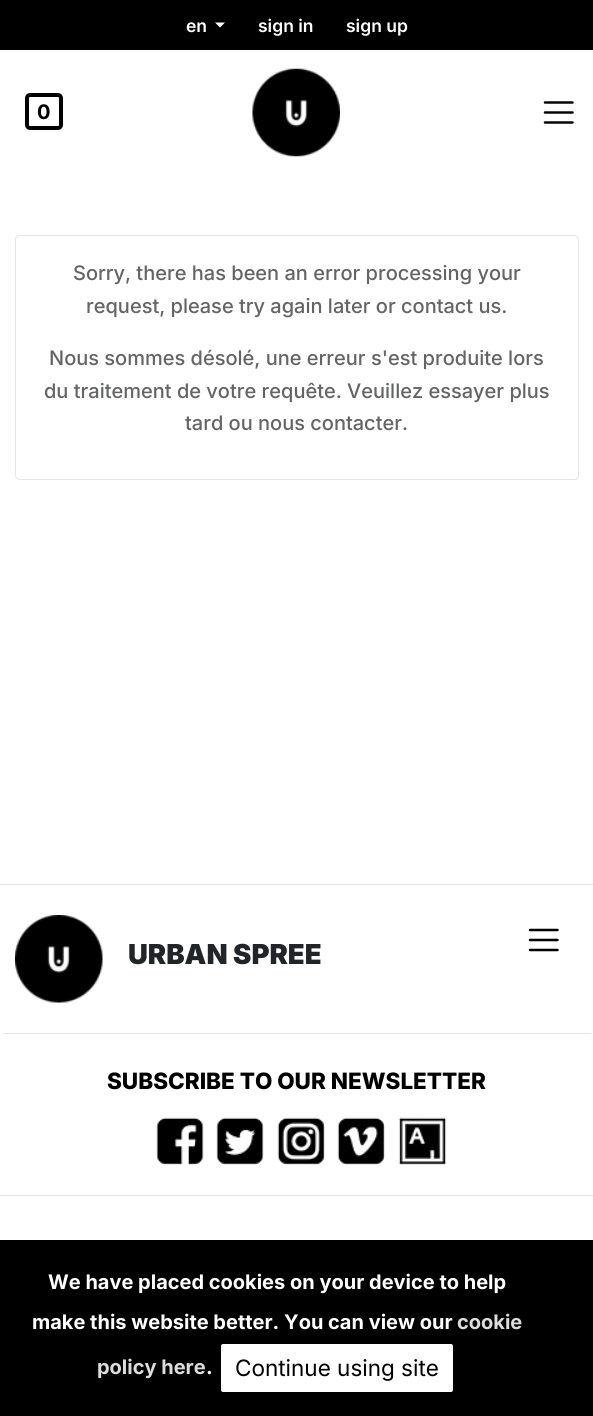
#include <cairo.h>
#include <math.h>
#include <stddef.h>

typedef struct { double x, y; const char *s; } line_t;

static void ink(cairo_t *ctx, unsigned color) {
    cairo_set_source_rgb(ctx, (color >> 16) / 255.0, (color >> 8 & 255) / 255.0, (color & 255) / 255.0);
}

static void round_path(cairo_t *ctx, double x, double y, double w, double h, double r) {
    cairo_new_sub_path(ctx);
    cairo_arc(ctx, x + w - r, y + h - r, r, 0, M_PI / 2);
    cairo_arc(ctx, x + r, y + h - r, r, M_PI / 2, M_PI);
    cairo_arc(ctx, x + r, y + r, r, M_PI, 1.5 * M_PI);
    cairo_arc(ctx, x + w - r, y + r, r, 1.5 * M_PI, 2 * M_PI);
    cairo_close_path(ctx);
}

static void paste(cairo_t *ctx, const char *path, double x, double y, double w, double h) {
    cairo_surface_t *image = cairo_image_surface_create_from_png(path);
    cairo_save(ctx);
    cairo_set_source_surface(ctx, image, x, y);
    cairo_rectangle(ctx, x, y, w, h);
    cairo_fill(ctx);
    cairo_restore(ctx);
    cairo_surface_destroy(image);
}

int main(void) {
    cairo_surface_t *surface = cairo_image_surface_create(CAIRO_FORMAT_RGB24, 593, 1416);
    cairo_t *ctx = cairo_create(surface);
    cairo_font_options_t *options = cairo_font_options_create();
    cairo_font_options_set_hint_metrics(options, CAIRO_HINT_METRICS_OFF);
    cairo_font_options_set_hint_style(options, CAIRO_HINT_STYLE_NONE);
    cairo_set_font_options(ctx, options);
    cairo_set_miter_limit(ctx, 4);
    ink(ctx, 0xFFFFFF);
    cairo_paint(ctx);
    ink(ctx, 0x000000);
    cairo_rectangle(ctx, 0, 0, 593, 50);
    cairo_fill(ctx);
    cairo_select_font_face(ctx, "Inter SemiBold", CAIRO_FONT_SLANT_NORMAL, CAIRO_FONT_WEIGHT_NORMAL);
    cairo_set_font_size(ctx, 17.5);
    ink(ctx, 0xFFFFFF);
    cairo_move_to(ctx, 186, 32);
    cairo_show_text(ctx, "en");
    cairo_new_path(ctx);
    cairo_move_to(ctx, 215, 22.5);
    cairo_line_to(ctx, 225, 22.5);
    cairo_line_to(ctx, 220, 27.5);
    cairo_close_path(ctx);
    cairo_fill(ctx);
    cairo_move_to(ctx, 258, 32);
    cairo_show_text(ctx, "sign in");
    cairo_move_to(ctx, 346, 32);
    cairo_show_text(ctx, "sign up");
    round_path(ctx, 27, 95, 34, 33, 3);
    ink(ctx, 0x000000);
    cairo_set_line_width(ctx, 4);
    cairo_stroke(ctx);
    cairo_select_font_face(ctx, "Inter", CAIRO_FONT_SLANT_NORMAL, CAIRO_FONT_WEIGHT_BOLD);
    cairo_set_font_size(ctx, 20);
    cairo_move_to(ctx, 37, 119);
    cairo_show_text(ctx, "0");
    paste(ctx, "media/1.png", 252, 68, 88, 89);
    cairo_new_path(ctx);
    cairo_move_to(ctx, 545, 102.5);
    cairo_line_to(ctx, 572.5, 102.5);
    cairo_move_to(ctx, 545, 112.5);
    cairo_line_to(ctx, 572.5, 112.5);
    cairo_move_to(ctx, 545, 122.5);
    cairo_line_to(ctx, 572.5, 122.5);
    ink(ctx, 0x030303);
    cairo_set_line_width(ctx, 2.5);
    cairo_set_line_cap(ctx, CAIRO_LINE_CAP_ROUND);
    cairo_stroke(ctx);
    round_path(ctx, 15.5, 235.5, 563, 244, 4.5);
    ink(ctx, 0xE5E5E5);
    cairo_set_line_width(ctx, 1);
    cairo_set_line_cap(ctx, CAIRO_LINE_CAP_BUTT);
    cairo_stroke(ctx);
    cairo_select_font_face(ctx, "Inter Medium", CAIRO_FONT_SLANT_NORMAL, CAIRO_FONT_WEIGHT_NORMAL);
    ink(ctx, 0x636464);
    {
        static const line_t items[] = {
            {73, 280, "Sorry, there has been an error processing your"},
            {86, 313, "request, please try again later or contact us."},
            {49, 365, "Nous sommes désolé, une erreur s'est produite lors"},
            {44, 398, "du traitement de votre requête. Veuillez essayer plus"},
            {185, 430, "tard ou nous contacter."},
        };
        for (size_t i = 0; i < sizeof items / sizeof *items; i++) {
            cairo_move_to(ctx, items[i].x, items[i].y);
            cairo_show_text(ctx, items[i].s);
        }
    }
    ink(ctx, 0xE5E5E5);
    cairo_rectangle(ctx, 0, 884, 593, 1);
    cairo_fill(ctx);
    cairo_rectangle(ctx, 0, 1195, 593, 1);
    cairo_fill(ctx);
    paste(ctx, "media/2.png", 15, 915, 88, 88);
    cairo_select_font_face(ctx, "Inter Black", CAIRO_FONT_SLANT_NORMAL, CAIRO_FONT_WEIGHT_NORMAL);
    cairo_set_font_size(ctx, 27.5);
    ink(ctx, 0x212529);
    cairo_move_to(ctx, 128, 964);
    cairo_show_text(ctx, "URBAN SPREE");
    cairo_new_path(ctx);
    cairo_move_to(ctx, 530, 930);
    cairo_line_to(ctx, 557.5, 930);
    cairo_move_to(ctx, 530, 940);
    cairo_line_to(ctx, 557.5, 940);
    cairo_move_to(ctx, 530, 950);
    cairo_line_to(ctx, 557.5, 950);
    ink(ctx, 0x030303);
    cairo_set_line_width(ctx, 2.5);
    cairo_set_line_cap(ctx, CAIRO_LINE_CAP_ROUND);
    cairo_stroke(ctx);
    ink(ctx, 0xE5E5E5);
    cairo_rectangle(ctx, 3, 1033, 588, 1);
    cairo_fill(ctx);
    cairo_select_font_face(ctx, "Inter ExtraBold", CAIRO_FONT_SLANT_NORMAL, CAIRO_FONT_WEIGHT_NORMAL);
    cairo_set_font_size(ctx, 22.5);
    ink(ctx, 0x000000);
    cairo_move_to(ctx, 107, 1089);
    cairo_show_text(ctx, "SUBSCRIBE TO OUR NEWSLETTER");
    paste(ctx, "media/3.png", 156, 1117, 48, 48);
    paste(ctx, "media/4.png", 216, 1117, 48, 48);
    paste(ctx, "media/5.png", 277, 1117, 48, 48);
    paste(ctx, "media/6.png", 337, 1117, 48, 48);
    paste(ctx, "media/7.png", 398, 1117, 49, 48);
    cairo_rectangle(ctx, 0, 1240, 593, 176);
    cairo_fill(ctx);
    cairo_select_font_face(ctx, "Inter", CAIRO_FONT_SLANT_NORMAL, CAIRO_FONT_WEIGHT_BOLD);
    cairo_set_font_size(ctx, 20);
    ink(ctx, 0xFFFFFF);
    cairo_move_to(ctx, 48, 1289);
    cairo_show_text(ctx, "We have placed cookies on your device to help");
    cairo_move_to(ctx, 32, 1329);
    cairo_show_text(ctx, "make this website better. You can view our");
    ink(ctx, 0xDDDDDD);
    cairo_move_to(ctx, 457, 1329);
    cairo_show_text(ctx, "cookie");
    cairo_move_to(ctx, 97, 1374);
    cairo_show_text(ctx, "policy here");
    ink(ctx, 0xFFFFFF);
    cairo_move_to(ctx, 206, 1374);
    cairo_show_text(ctx, ".");
    round_path(ctx, 219.5, 1342.5, 235, 51, 3.5);
    cairo_fill_preserve(ctx);
    ink(ctx, 0x000000);
    cairo_set_line_width(ctx, 3);
    cairo_set_line_cap(ctx, CAIRO_LINE_CAP_BUTT);
    cairo_stroke(ctx);
    cairo_select_font_face(ctx, "Inter", CAIRO_FONT_SLANT_NORMAL, CAIRO_FONT_WEIGHT_NORMAL);
    cairo_set_font_size(ctx, 22.5);
    cairo_move_to(ctx, 235, 1376);
    cairo_show_text(ctx, "Continue using site");
    cairo_surface_write_to_png(surface, "image.png");
    cairo_font_options_destroy(options);
    cairo_destroy(ctx);
    cairo_surface_destroy(surface);
    return 0;
}
